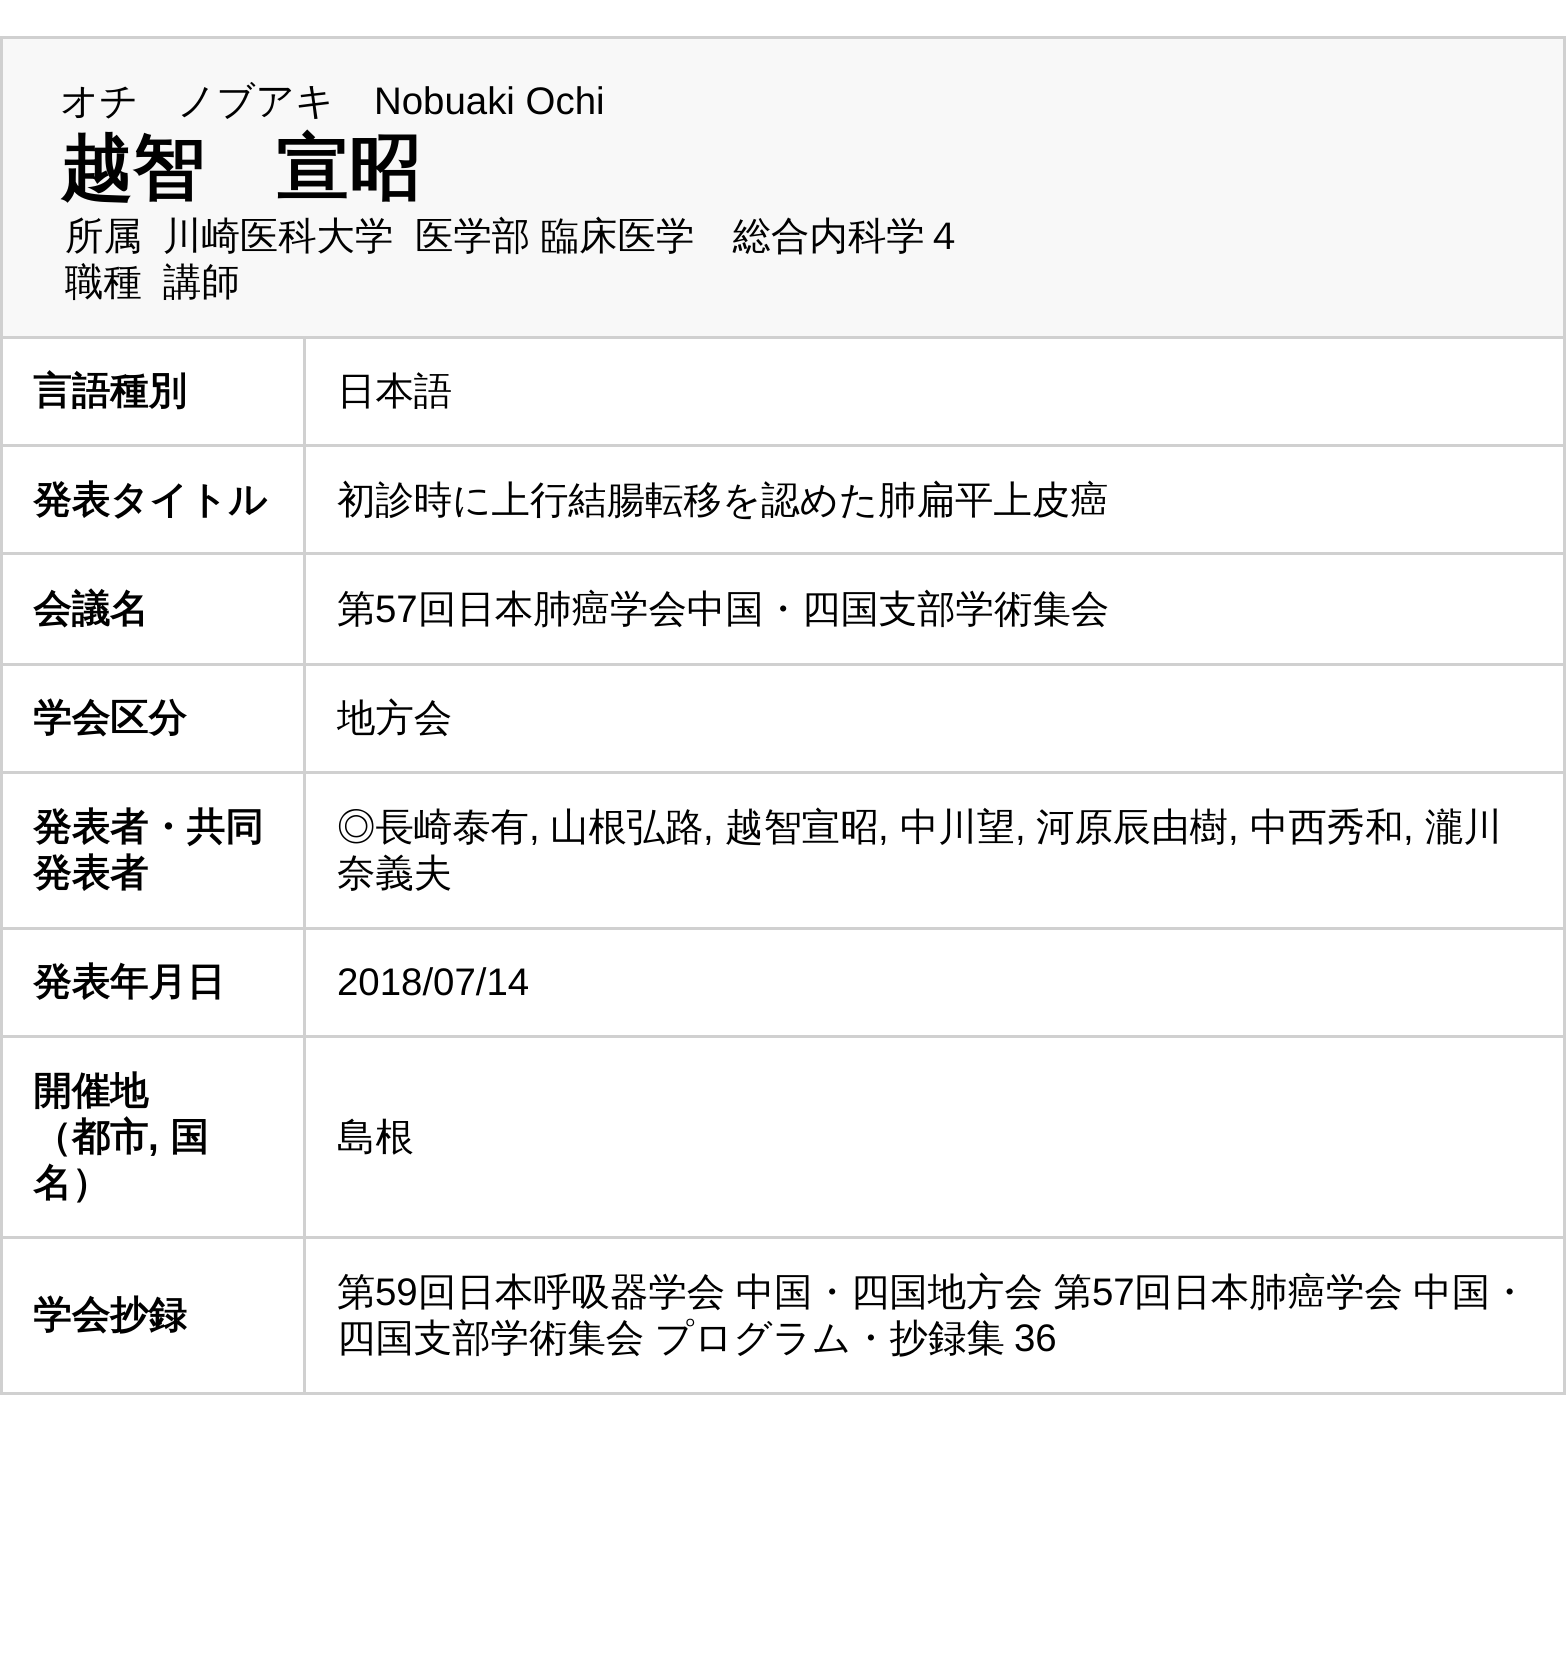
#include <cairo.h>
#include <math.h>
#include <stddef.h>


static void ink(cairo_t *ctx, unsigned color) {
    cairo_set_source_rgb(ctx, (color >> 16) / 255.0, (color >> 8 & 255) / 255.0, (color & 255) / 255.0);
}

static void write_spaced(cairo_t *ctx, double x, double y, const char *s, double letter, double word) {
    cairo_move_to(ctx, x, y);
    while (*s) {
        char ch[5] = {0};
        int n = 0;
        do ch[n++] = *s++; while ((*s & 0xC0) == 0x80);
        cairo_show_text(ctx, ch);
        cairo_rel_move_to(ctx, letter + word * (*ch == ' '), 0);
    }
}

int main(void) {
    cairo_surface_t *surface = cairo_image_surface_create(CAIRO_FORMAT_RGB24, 1566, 1677);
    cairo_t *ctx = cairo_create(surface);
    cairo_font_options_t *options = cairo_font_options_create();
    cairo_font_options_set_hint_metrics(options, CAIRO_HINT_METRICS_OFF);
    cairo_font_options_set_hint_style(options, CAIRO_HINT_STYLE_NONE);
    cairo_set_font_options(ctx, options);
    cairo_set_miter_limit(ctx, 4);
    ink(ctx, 0xFFFFFF);
    cairo_paint(ctx);
    ink(ctx, 0xD0D0D0);
    cairo_rectangle(ctx, 0, 36, 1566, 1359);
    cairo_fill(ctx);
    ink(ctx, 0xF8F8F8);
    cairo_rectangle(ctx, 3, 39, 1560, 297);
    cairo_fill(ctx);
    cairo_select_font_face(ctx, "WenQuanYi Zen Hei Medium", CAIRO_FONT_SLANT_NORMAL, CAIRO_FONT_WEIGHT_NORMAL);
    cairo_set_font_size(ctx, 38.4);
    ink(ctx, 0x000000);
    cairo_move_to(ctx, 60, 114);
    cairo_show_text(ctx, "オチ　ノブアキ");
    cairo_select_font_face(ctx, "Liberation Sans", CAIRO_FONT_SLANT_NORMAL, CAIRO_FONT_WEIGHT_NORMAL);
    cairo_move_to(ctx, 374, 114);
    cairo_show_text(ctx, "Nobuaki Ochi");
    cairo_select_font_face(ctx, "WenQuanYi Zen Hei", CAIRO_FONT_SLANT_NORMAL, CAIRO_FONT_WEIGHT_BOLD);
    cairo_set_font_size(ctx, 72);
    cairo_move_to(ctx, 60, 193);
    cairo_show_text(ctx, "越智　宣昭");
    cairo_select_font_face(ctx, "WenQuanYi Zen Hei Medium", CAIRO_FONT_SLANT_NORMAL, CAIRO_FONT_WEIGHT_NORMAL);
    cairo_set_font_size(ctx, 38.4);
    cairo_move_to(ctx, 65, 249);
    cairo_show_text(ctx, "所属");
    cairo_move_to(ctx, 163, 249);
    cairo_show_text(ctx, "川崎医科大学");
    write_spaced(ctx, 415, 249, "医学部 臨床医学　総合内科学４", 0, -1);
    cairo_move_to(ctx, 65, 295);
    cairo_show_text(ctx, "職種");
    cairo_move_to(ctx, 163, 295);
    cairo_show_text(ctx, "講師");
    ink(ctx, 0xFFFFFF);
    cairo_rectangle(ctx, 3, 339, 300, 105);
    cairo_fill(ctx);
    cairo_select_font_face(ctx, "WenQuanYi Zen Hei", CAIRO_FONT_SLANT_NORMAL, CAIRO_FONT_WEIGHT_BOLD);
    ink(ctx, 0x000000);
    cairo_move_to(ctx, 33, 404);
    cairo_show_text(ctx, "言語種別");
    ink(ctx, 0xFFFFFF);
    cairo_rectangle(ctx, 306, 339, 1257, 105);
    cairo_fill(ctx);
    cairo_select_font_face(ctx, "WenQuanYi Zen Hei Medium", CAIRO_FONT_SLANT_NORMAL, CAIRO_FONT_WEIGHT_NORMAL);
    ink(ctx, 0x000000);
    cairo_move_to(ctx, 337, 404);
    cairo_show_text(ctx, "日本語");
    ink(ctx, 0xFFFFFF);
    cairo_rectangle(ctx, 3, 447, 300, 105);
    cairo_fill(ctx);
    cairo_select_font_face(ctx, "WenQuanYi Zen Hei", CAIRO_FONT_SLANT_NORMAL, CAIRO_FONT_WEIGHT_BOLD);
    ink(ctx, 0x000000);
    cairo_move_to(ctx, 33, 513);
    cairo_show_text(ctx, "発表タイトル");
    ink(ctx, 0xFFFFFF);
    cairo_rectangle(ctx, 306, 447, 1257, 105);
    cairo_fill(ctx);
    cairo_select_font_face(ctx, "WenQuanYi Zen Hei Medium", CAIRO_FONT_SLANT_NORMAL, CAIRO_FONT_WEIGHT_NORMAL);
    ink(ctx, 0x000000);
    cairo_move_to(ctx, 337, 513);
    cairo_show_text(ctx, "初診時に上行結腸転移を認めた肺扁平上皮癌");
    ink(ctx, 0xFFFFFF);
    cairo_rectangle(ctx, 3, 555, 300, 108);
    cairo_fill(ctx);
    cairo_select_font_face(ctx, "WenQuanYi Zen Hei", CAIRO_FONT_SLANT_NORMAL, CAIRO_FONT_WEIGHT_BOLD);
    ink(ctx, 0x000000);
    cairo_move_to(ctx, 33, 622);
    cairo_show_text(ctx, "会議名");
    ink(ctx, 0xFFFFFF);
    cairo_rectangle(ctx, 306, 555, 1257, 108);
    cairo_fill(ctx);
    cairo_select_font_face(ctx, "WenQuanYi Zen Hei Medium", CAIRO_FONT_SLANT_NORMAL, CAIRO_FONT_WEIGHT_NORMAL);
    ink(ctx, 0x000000);
    cairo_move_to(ctx, 337, 622);
    cairo_show_text(ctx, "第");
    cairo_select_font_face(ctx, "Liberation Sans", CAIRO_FONT_SLANT_NORMAL, CAIRO_FONT_WEIGHT_NORMAL);
    cairo_move_to(ctx, 375, 622);
    cairo_show_text(ctx, "57");
    cairo_select_font_face(ctx, "WenQuanYi Zen Hei Medium", CAIRO_FONT_SLANT_NORMAL, CAIRO_FONT_WEIGHT_NORMAL);
    cairo_move_to(ctx, 418, 622);
    cairo_show_text(ctx, "回日本肺癌学会中国・四国支部学術集会");
    ink(ctx, 0xFFFFFF);
    cairo_rectangle(ctx, 3, 666, 300, 105);
    cairo_fill(ctx);
    cairo_select_font_face(ctx, "WenQuanYi Zen Hei", CAIRO_FONT_SLANT_NORMAL, CAIRO_FONT_WEIGHT_BOLD);
    ink(ctx, 0x000000);
    cairo_move_to(ctx, 33, 731);
    cairo_show_text(ctx, "学会区分");
    ink(ctx, 0xFFFFFF);
    cairo_rectangle(ctx, 306, 666, 1257, 105);
    cairo_fill(ctx);
    cairo_select_font_face(ctx, "WenQuanYi Zen Hei Medium", CAIRO_FONT_SLANT_NORMAL, CAIRO_FONT_WEIGHT_NORMAL);
    ink(ctx, 0x000000);
    cairo_move_to(ctx, 337, 731);
    cairo_show_text(ctx, "地方会");
    ink(ctx, 0xFFFFFF);
    cairo_rectangle(ctx, 3, 774, 300, 153);
    cairo_fill(ctx);
    cairo_select_font_face(ctx, "WenQuanYi Zen Hei", CAIRO_FONT_SLANT_NORMAL, CAIRO_FONT_WEIGHT_BOLD);
    ink(ctx, 0x000000);
    cairo_move_to(ctx, 33, 840);
    cairo_show_text(ctx, "発表者・共同");
    cairo_move_to(ctx, 33, 886);
    cairo_show_text(ctx, "発表者");
    ink(ctx, 0xFFFFFF);
    cairo_rectangle(ctx, 306, 774, 1257, 153);
    cairo_fill(ctx);
    cairo_select_font_face(ctx, "WenQuanYi Zen Hei Medium", CAIRO_FONT_SLANT_NORMAL, CAIRO_FONT_WEIGHT_NORMAL);
    ink(ctx, 0x000000);
    cairo_move_to(ctx, 337, 840);
    cairo_show_text(ctx, "◎長崎泰有");
    cairo_select_font_face(ctx, "Liberation Sans", CAIRO_FONT_SLANT_NORMAL, CAIRO_FONT_WEIGHT_NORMAL);
    cairo_move_to(ctx, 529, 840);
    cairo_show_text(ctx, ",");
    cairo_select_font_face(ctx, "WenQuanYi Zen Hei Medium", CAIRO_FONT_SLANT_NORMAL, CAIRO_FONT_WEIGHT_NORMAL);
    cairo_move_to(ctx, 550, 840);
    cairo_show_text(ctx, "山根弘路");
    cairo_select_font_face(ctx, "Liberation Sans", CAIRO_FONT_SLANT_NORMAL, CAIRO_FONT_WEIGHT_NORMAL);
    cairo_move_to(ctx, 703, 840);
    cairo_show_text(ctx, ",");
    cairo_select_font_face(ctx, "WenQuanYi Zen Hei Medium", CAIRO_FONT_SLANT_NORMAL, CAIRO_FONT_WEIGHT_NORMAL);
    cairo_move_to(ctx, 725, 840);
    cairo_show_text(ctx, "越智宣昭");
    cairo_select_font_face(ctx, "Liberation Sans", CAIRO_FONT_SLANT_NORMAL, CAIRO_FONT_WEIGHT_NORMAL);
    cairo_move_to(ctx, 878, 840);
    cairo_show_text(ctx, ",");
    cairo_select_font_face(ctx, "WenQuanYi Zen Hei Medium", CAIRO_FONT_SLANT_NORMAL, CAIRO_FONT_WEIGHT_NORMAL);
    cairo_move_to(ctx, 900, 840);
    cairo_show_text(ctx, "中川望");
    cairo_select_font_face(ctx, "Liberation Sans", CAIRO_FONT_SLANT_NORMAL, CAIRO_FONT_WEIGHT_NORMAL);
    cairo_move_to(ctx, 1015, 840);
    cairo_show_text(ctx, ",");
    cairo_select_font_face(ctx, "WenQuanYi Zen Hei Medium", CAIRO_FONT_SLANT_NORMAL, CAIRO_FONT_WEIGHT_NORMAL);
    cairo_move_to(ctx, 1036, 840);
    cairo_show_text(ctx, "河原辰由樹");
    cairo_select_font_face(ctx, "Liberation Sans", CAIRO_FONT_SLANT_NORMAL, CAIRO_FONT_WEIGHT_NORMAL);
    cairo_move_to(ctx, 1228, 840);
    cairo_show_text(ctx, ",");
    cairo_select_font_face(ctx, "WenQuanYi Zen Hei Medium", CAIRO_FONT_SLANT_NORMAL, CAIRO_FONT_WEIGHT_NORMAL);
    cairo_move_to(ctx, 1250, 840);
    cairo_show_text(ctx, "中西秀和");
    cairo_select_font_face(ctx, "Liberation Sans", CAIRO_FONT_SLANT_NORMAL, CAIRO_FONT_WEIGHT_NORMAL);
    cairo_move_to(ctx, 1403, 840);
    cairo_show_text(ctx, ",");
    cairo_select_font_face(ctx, "WenQuanYi Zen Hei Medium", CAIRO_FONT_SLANT_NORMAL, CAIRO_FONT_WEIGHT_NORMAL);
    cairo_move_to(ctx, 1425, 840);
    cairo_show_text(ctx, "瀧川");
    cairo_move_to(ctx, 337, 886);
    cairo_show_text(ctx, "奈義夫");
    ink(ctx, 0xFFFFFF);
    cairo_rectangle(ctx, 3, 930, 300, 105);
    cairo_fill(ctx);
    cairo_select_font_face(ctx, "WenQuanYi Zen Hei", CAIRO_FONT_SLANT_NORMAL, CAIRO_FONT_WEIGHT_BOLD);
    ink(ctx, 0x000000);
    cairo_move_to(ctx, 33, 995);
    cairo_show_text(ctx, "発表年月日");
    ink(ctx, 0xFFFFFF);
    cairo_rectangle(ctx, 306, 930, 1257, 105);
    cairo_fill(ctx);
    cairo_select_font_face(ctx, "Liberation Sans", CAIRO_FONT_SLANT_NORMAL, CAIRO_FONT_WEIGHT_NORMAL);
    ink(ctx, 0x000000);
    cairo_move_to(ctx, 337, 995);
    cairo_show_text(ctx, "2018/07/14");
    ink(ctx, 0xFFFFFF);
    cairo_rectangle(ctx, 3, 1038, 300, 198);
    cairo_fill(ctx);
    cairo_select_font_face(ctx, "WenQuanYi Zen Hei", CAIRO_FONT_SLANT_NORMAL, CAIRO_FONT_WEIGHT_BOLD);
    ink(ctx, 0x000000);
    cairo_move_to(ctx, 33, 1104);
    cairo_show_text(ctx, "開催地");
    cairo_move_to(ctx, 33, 1150);
    cairo_show_text(ctx, "（都市");
    cairo_select_font_face(ctx, "Liberation Sans", CAIRO_FONT_SLANT_NORMAL, CAIRO_FONT_WEIGHT_BOLD);
    cairo_move_to(ctx, 148, 1150);
    cairo_show_text(ctx, ",");
    cairo_select_font_face(ctx, "WenQuanYi Zen Hei", CAIRO_FONT_SLANT_NORMAL, CAIRO_FONT_WEIGHT_BOLD);
    cairo_move_to(ctx, 170, 1150);
    cairo_show_text(ctx, "国");
    cairo_move_to(ctx, 33, 1196);
    cairo_show_text(ctx, "名）");
    ink(ctx, 0xFFFFFF);
    cairo_rectangle(ctx, 306, 1038, 1257, 198);
    cairo_fill(ctx);
    cairo_select_font_face(ctx, "WenQuanYi Zen Hei Medium", CAIRO_FONT_SLANT_NORMAL, CAIRO_FONT_WEIGHT_NORMAL);
    ink(ctx, 0x000000);
    cairo_move_to(ctx, 337, 1150);
    cairo_show_text(ctx, "島根");
    ink(ctx, 0xFFFFFF);
    cairo_rectangle(ctx, 3, 1239, 300, 153);
    cairo_fill(ctx);
    cairo_select_font_face(ctx, "WenQuanYi Zen Hei", CAIRO_FONT_SLANT_NORMAL, CAIRO_FONT_WEIGHT_BOLD);
    ink(ctx, 0x000000);
    cairo_move_to(ctx, 33, 1328);
    cairo_show_text(ctx, "学会抄録");
    ink(ctx, 0xFFFFFF);
    cairo_rectangle(ctx, 306, 1239, 1257, 153);
    cairo_fill(ctx);
    cairo_select_font_face(ctx, "WenQuanYi Zen Hei Medium", CAIRO_FONT_SLANT_NORMAL, CAIRO_FONT_WEIGHT_NORMAL);
    ink(ctx, 0x000000);
    cairo_move_to(ctx, 337, 1305);
    cairo_show_text(ctx, "第");
    cairo_select_font_face(ctx, "Liberation Sans", CAIRO_FONT_SLANT_NORMAL, CAIRO_FONT_WEIGHT_NORMAL);
    cairo_move_to(ctx, 375, 1305);
    cairo_show_text(ctx, "59");
    cairo_select_font_face(ctx, "WenQuanYi Zen Hei Medium", CAIRO_FONT_SLANT_NORMAL, CAIRO_FONT_WEIGHT_NORMAL);
    write_spaced(ctx, 418, 1305, "回日本呼吸器学会 中国・四国地方会 第", 0, -1);
    cairo_select_font_face(ctx, "Liberation Sans", CAIRO_FONT_SLANT_NORMAL, CAIRO_FONT_WEIGHT_NORMAL);
    cairo_move_to(ctx, 1092, 1305);
    cairo_show_text(ctx, "57");
    cairo_select_font_face(ctx, "WenQuanYi Zen Hei Medium", CAIRO_FONT_SLANT_NORMAL, CAIRO_FONT_WEIGHT_NORMAL);
    write_spaced(ctx, 1134, 1305, "回日本肺癌学会 中国・", 0, -1);
    write_spaced(ctx, 337, 1351, "四国支部学術集会 プログラム・抄録集", 0, -1);
    cairo_select_font_face(ctx, "Liberation Sans", CAIRO_FONT_SLANT_NORMAL, CAIRO_FONT_WEIGHT_NORMAL);
    cairo_move_to(ctx, 1014, 1351);
    cairo_show_text(ctx, "36");
    cairo_surface_write_to_png(surface, "image.png");
    cairo_font_options_destroy(options);
    cairo_destroy(ctx);
    cairo_surface_destroy(surface);
    return 0;
}
